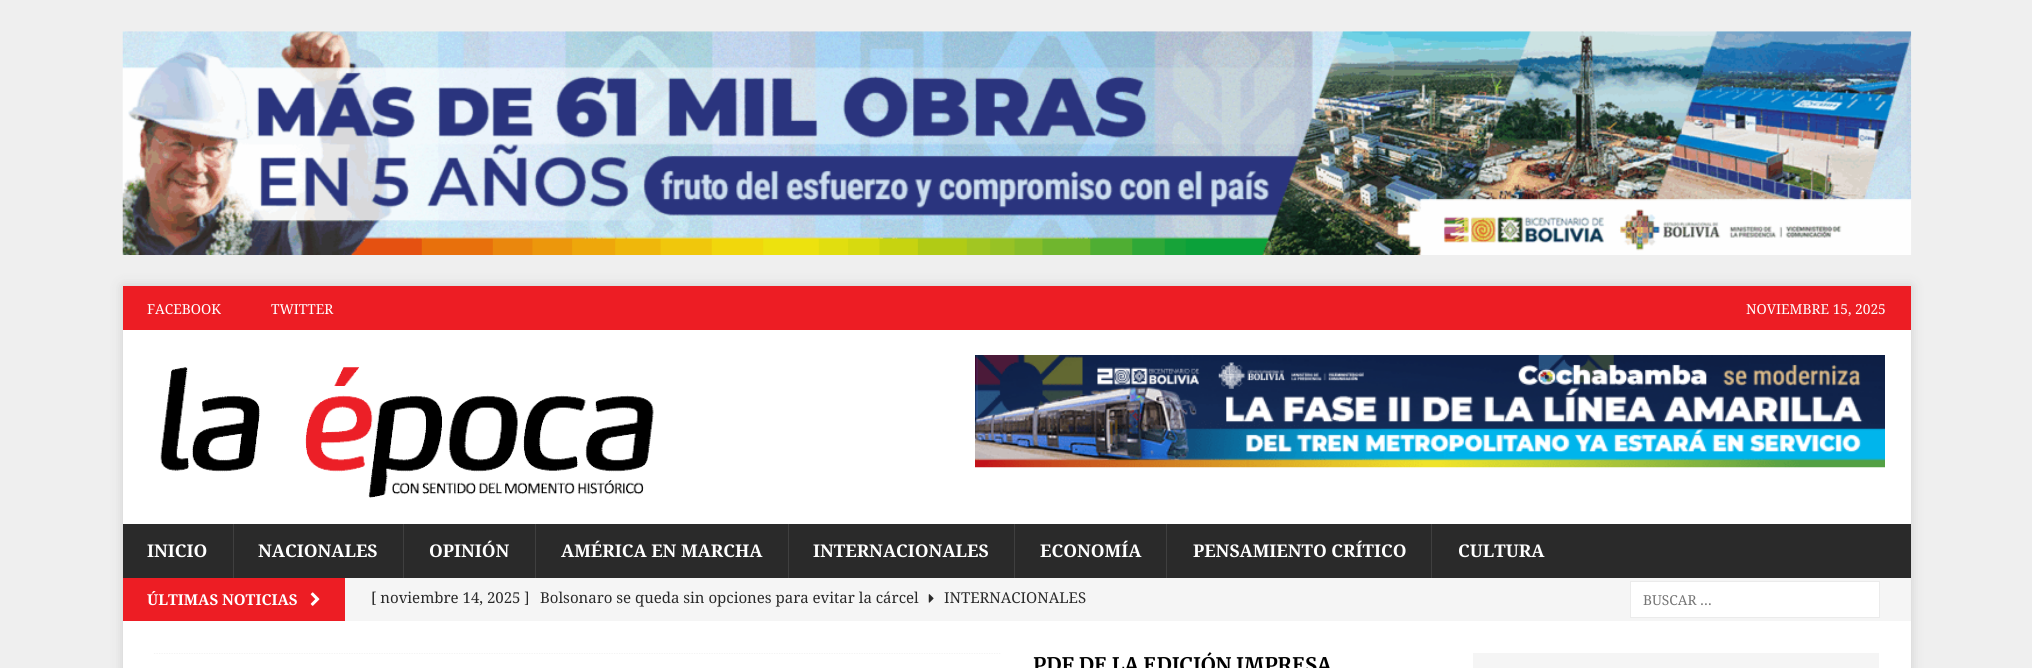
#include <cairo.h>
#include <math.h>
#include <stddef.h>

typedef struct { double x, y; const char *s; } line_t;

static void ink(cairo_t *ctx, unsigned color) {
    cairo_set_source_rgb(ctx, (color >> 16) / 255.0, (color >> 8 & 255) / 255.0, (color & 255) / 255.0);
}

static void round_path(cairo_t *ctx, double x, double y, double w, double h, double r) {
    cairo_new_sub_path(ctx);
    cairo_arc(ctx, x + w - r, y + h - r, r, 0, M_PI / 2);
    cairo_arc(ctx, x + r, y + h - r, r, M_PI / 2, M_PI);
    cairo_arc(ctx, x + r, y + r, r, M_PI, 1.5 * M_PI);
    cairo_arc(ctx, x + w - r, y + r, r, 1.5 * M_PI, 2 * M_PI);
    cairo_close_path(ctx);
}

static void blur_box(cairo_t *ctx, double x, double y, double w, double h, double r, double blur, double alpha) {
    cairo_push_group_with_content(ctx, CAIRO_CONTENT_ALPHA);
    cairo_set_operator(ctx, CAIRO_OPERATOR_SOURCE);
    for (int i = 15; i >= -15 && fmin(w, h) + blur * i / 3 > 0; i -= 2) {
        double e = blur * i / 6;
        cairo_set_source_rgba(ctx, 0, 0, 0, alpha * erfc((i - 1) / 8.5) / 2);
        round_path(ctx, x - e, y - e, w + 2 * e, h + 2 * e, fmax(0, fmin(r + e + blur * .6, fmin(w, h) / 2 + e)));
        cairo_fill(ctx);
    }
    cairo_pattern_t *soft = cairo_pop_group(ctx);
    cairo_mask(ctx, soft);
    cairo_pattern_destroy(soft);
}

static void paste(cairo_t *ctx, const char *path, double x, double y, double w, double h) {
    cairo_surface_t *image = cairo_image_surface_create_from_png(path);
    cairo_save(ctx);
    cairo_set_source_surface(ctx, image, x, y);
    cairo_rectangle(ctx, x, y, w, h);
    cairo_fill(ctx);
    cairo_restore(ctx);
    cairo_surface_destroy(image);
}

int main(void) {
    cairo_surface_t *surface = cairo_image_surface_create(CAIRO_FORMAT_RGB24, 2032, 668);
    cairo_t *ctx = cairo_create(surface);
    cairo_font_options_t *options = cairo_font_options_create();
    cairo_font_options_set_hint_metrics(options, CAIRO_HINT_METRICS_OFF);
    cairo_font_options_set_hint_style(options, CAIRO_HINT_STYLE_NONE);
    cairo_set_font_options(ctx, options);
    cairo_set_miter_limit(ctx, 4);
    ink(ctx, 0xEFEFEF);
    cairo_paint(ctx);
    paste(ctx, "media/1.png", 122, 31, 1790, 224);
    ink(ctx, 0x323232);
    blur_box(ctx, 123, 286, 1788, 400, 0, 6, 0.17);
    ink(ctx, 0xED1D24);
    cairo_rectangle(ctx, 123, 286, 1788, 44);
    cairo_fill(ctx);
    cairo_select_font_face(ctx, "Noto Serif", CAIRO_FONT_SLANT_NORMAL, CAIRO_FONT_WEIGHT_NORMAL);
    cairo_set_font_size(ctx, 13.75);
    ink(ctx, 0xFFFFFF);
    {
        static const line_t items[] = {
            {147, 314, "FACEBOOK"},
            {271, 314, "TWITTER"},
            {1746, 314, "NOVIEMBRE 15, 2025"},
        };
        for (size_t i = 0; i < sizeof items / sizeof *items; i++) {
            cairo_move_to(ctx, items[i].x, items[i].y);
            cairo_show_text(ctx, items[i].s);
        }
    }
    cairo_rectangle(ctx, 123, 330, 1788, 194);
    cairo_fill(ctx);
    paste(ctx, "media/2.png", 160, 367, 494, 131);
    paste(ctx, "media/3.png", 975, 355, 910, 113);
    ink(ctx, 0x2A2A2A);
    cairo_rectangle(ctx, 123, 524, 1788, 54);
    cairo_fill(ctx);
    cairo_select_font_face(ctx, "Noto Serif", CAIRO_FONT_SLANT_NORMAL, CAIRO_FONT_WEIGHT_BOLD);
    cairo_set_font_size(ctx, 17.5);
    ink(ctx, 0xFFFFFF);
    cairo_move_to(ctx, 147, 557);
    cairo_show_text(ctx, "INICIO");
    ink(ctx, 0x3F3F3F);
    cairo_rectangle(ctx, 233, 524, 1, 54);
    cairo_fill(ctx);
    ink(ctx, 0xFFFFFF);
    cairo_move_to(ctx, 258, 557);
    cairo_show_text(ctx, "NACIONALES");
    ink(ctx, 0x3F3F3F);
    cairo_rectangle(ctx, 403, 524, 1, 54);
    cairo_fill(ctx);
    ink(ctx, 0xFFFFFF);
    cairo_move_to(ctx, 429, 557);
    cairo_show_text(ctx, "OPINIÓN");
    ink(ctx, 0x3F3F3F);
    cairo_rectangle(ctx, 535, 524, 1, 54);
    cairo_fill(ctx);
    ink(ctx, 0xFFFFFF);
    cairo_move_to(ctx, 561, 557);
    cairo_show_text(ctx, "AMÉRICA EN MARCHA");
    ink(ctx, 0x3F3F3F);
    cairo_rectangle(ctx, 788, 524, 1, 54);
    cairo_fill(ctx);
    ink(ctx, 0xFFFFFF);
    cairo_move_to(ctx, 813, 557);
    cairo_show_text(ctx, "INTERNACIONALES");
    ink(ctx, 0x3F3F3F);
    cairo_rectangle(ctx, 1014, 524, 1, 54);
    cairo_fill(ctx);
    ink(ctx, 0xFFFFFF);
    cairo_move_to(ctx, 1040, 557);
    cairo_show_text(ctx, "ECONOMÍA");
    ink(ctx, 0x3F3F3F);
    cairo_rectangle(ctx, 1166, 524, 1, 54);
    cairo_fill(ctx);
    ink(ctx, 0xFFFFFF);
    cairo_move_to(ctx, 1193, 557);
    cairo_show_text(ctx, "PENSAMIENTO CRÍTICO");
    ink(ctx, 0x3F3F3F);
    cairo_rectangle(ctx, 1431, 524, 1, 54);
    cairo_fill(ctx);
    ink(ctx, 0xFFFFFF);
    cairo_move_to(ctx, 1458, 557);
    cairo_show_text(ctx, "CULTURA");
    ink(ctx, 0xF5F5F5);
    cairo_rectangle(ctx, 345, 578, 1566, 43);
    cairo_fill(ctx);
    ink(ctx, 0xED1D24);
    cairo_rectangle(ctx, 123, 578, 222, 43);
    cairo_fill(ctx);
    cairo_set_font_size(ctx, 15);
    ink(ctx, 0xFFFFFF);
    cairo_move_to(ctx, 147, 605);
    cairo_show_text(ctx, "ÚLTIMAS NOTICIAS");
    paste(ctx, "media/4.png", 310, 592, 10, 14);
    cairo_select_font_face(ctx, "Noto Serif", CAIRO_FONT_SLANT_NORMAL, CAIRO_FONT_WEIGHT_NORMAL);
    ink(ctx, 0x2A2A2A);
    cairo_move_to(ctx, 371, 603);
    cairo_show_text(ctx, "[ noviembre 14, 2025 ]");
    cairo_move_to(ctx, 540, 603);
    cairo_show_text(ctx, "Bolsonaro se queda sin opciones para evitar la cárcel");
    paste(ctx, "media/5.png", 928, 594, 6, 9);
    cairo_move_to(ctx, 944, 603);
    cairo_show_text(ctx, "INTERNACIONALES");
    ink(ctx, 0xFFFFFF);
    cairo_rectangle(ctx, 1630.5, 581.5, 249, 36);
    cairo_fill_preserve(ctx);
    ink(ctx, 0xEBEBEB);
    cairo_set_line_width(ctx, 1);
    cairo_stroke(ctx);
    cairo_set_font_size(ctx, 13.75);
    ink(ctx, 0x757575);
    cairo_move_to(ctx, 1643, 605);
    cairo_show_text(ctx, "BUSCAR …");
    ink(ctx, 0xFFFFFF);
    cairo_rectangle(ctx, 123, 621, 1788, 47);
    cairo_fill(ctx);
    cairo_save(ctx);
    cairo_rectangle(ctx, 154, 653, 847, 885);
    cairo_clip(ctx);
    cairo_new_path(ctx);
    cairo_move_to(ctx, 154, 653);
    cairo_line_to(ctx, 1001, 653);
    ink(ctx, 0xEBEBEB);
    cairo_set_line_width(ctx, 1.2);
    cairo_set_dash(ctx, (double[]){1.25, 1.25}, 2, 0);
    cairo_stroke(ctx);
    cairo_restore(ctx);
    cairo_select_font_face(ctx, "Merriweather", CAIRO_FONT_SLANT_NORMAL, CAIRO_FONT_WEIGHT_BOLD);
    cairo_set_font_size(ctx, 20);
    ink(ctx, 0x000000);
    cairo_move_to(ctx, 1033, 672);
    cairo_show_text(ctx, "PDF DE LA EDICIÓN IMPRESA");
    ink(ctx, 0xF5F5F5);
    cairo_rectangle(ctx, 1473, 653, 406, 15);
    cairo_fill(ctx);
    cairo_surface_write_to_png(surface, "image.png");
    cairo_font_options_destroy(options);
    cairo_destroy(ctx);
    cairo_surface_destroy(surface);
    return 0;
}
